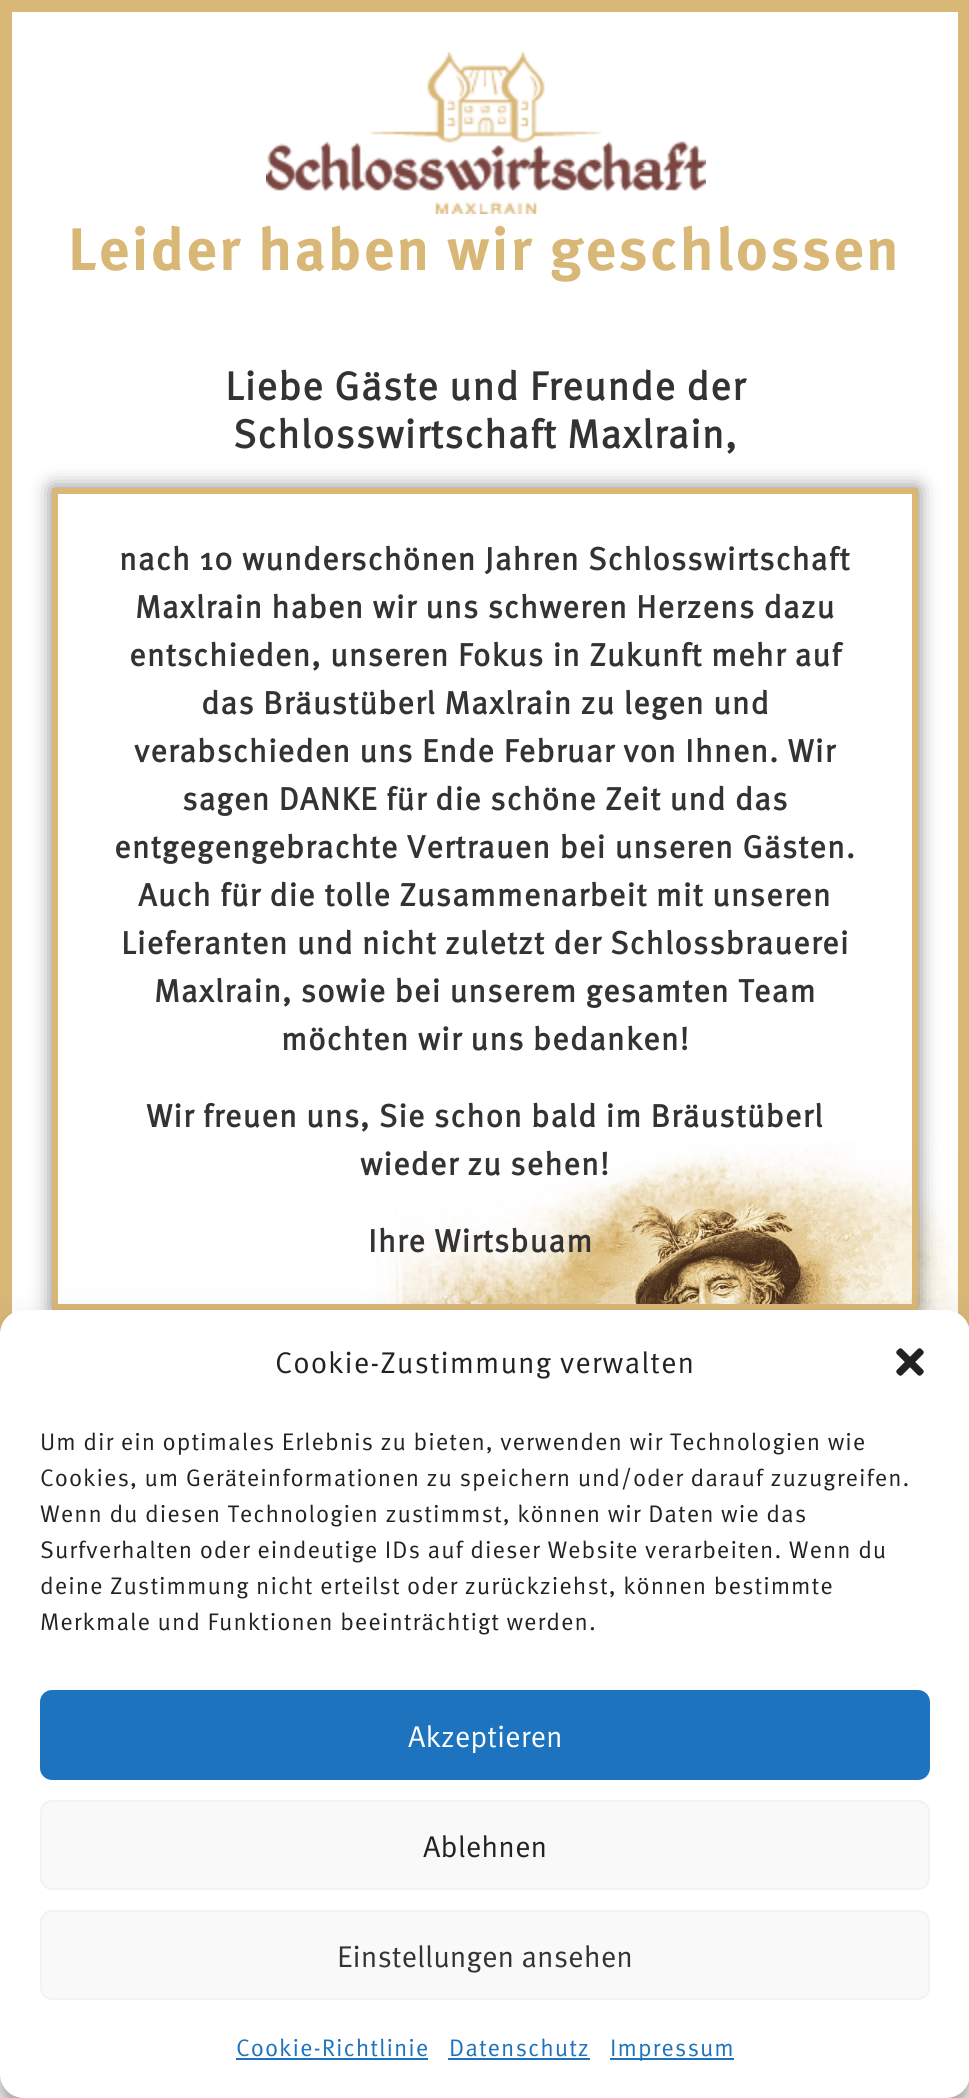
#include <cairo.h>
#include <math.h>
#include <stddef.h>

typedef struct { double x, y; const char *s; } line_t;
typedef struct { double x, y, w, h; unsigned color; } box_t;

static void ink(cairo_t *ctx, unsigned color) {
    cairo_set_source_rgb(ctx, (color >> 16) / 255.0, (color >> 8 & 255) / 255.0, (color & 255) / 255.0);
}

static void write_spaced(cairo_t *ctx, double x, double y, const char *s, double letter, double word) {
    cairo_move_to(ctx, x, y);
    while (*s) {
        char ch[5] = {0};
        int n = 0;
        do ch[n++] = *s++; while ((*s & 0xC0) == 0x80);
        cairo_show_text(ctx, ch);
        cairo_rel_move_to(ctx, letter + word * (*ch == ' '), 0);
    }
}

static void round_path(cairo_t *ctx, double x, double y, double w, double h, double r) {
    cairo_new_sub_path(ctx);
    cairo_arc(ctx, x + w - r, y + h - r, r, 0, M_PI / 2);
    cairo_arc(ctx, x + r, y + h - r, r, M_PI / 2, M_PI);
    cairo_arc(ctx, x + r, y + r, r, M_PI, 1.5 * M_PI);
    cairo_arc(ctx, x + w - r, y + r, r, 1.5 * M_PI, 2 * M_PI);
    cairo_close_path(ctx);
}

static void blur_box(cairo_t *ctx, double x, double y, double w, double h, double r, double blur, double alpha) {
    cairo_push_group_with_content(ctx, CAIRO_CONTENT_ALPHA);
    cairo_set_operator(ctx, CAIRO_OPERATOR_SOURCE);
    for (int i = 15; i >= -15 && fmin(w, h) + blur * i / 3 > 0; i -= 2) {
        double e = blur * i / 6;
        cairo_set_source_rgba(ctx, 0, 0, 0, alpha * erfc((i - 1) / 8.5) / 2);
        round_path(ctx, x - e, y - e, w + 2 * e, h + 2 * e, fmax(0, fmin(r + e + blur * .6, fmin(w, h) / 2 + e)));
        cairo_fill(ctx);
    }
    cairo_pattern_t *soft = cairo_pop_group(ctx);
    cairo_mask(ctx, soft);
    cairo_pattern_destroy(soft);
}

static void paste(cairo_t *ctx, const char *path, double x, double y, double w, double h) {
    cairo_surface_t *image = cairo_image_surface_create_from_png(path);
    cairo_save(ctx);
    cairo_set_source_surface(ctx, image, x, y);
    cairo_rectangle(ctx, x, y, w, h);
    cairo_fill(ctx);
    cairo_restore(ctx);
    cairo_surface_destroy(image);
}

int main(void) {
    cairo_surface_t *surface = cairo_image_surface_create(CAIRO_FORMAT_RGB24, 969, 2098);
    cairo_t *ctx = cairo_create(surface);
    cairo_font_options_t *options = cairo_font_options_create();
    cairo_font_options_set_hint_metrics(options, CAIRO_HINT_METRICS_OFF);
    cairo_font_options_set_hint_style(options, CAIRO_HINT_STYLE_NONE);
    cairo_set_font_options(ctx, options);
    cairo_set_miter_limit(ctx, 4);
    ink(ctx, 0xFFFFFF);
    cairo_paint(ctx);
    paste(ctx, "media/1.png", 296, 1142, 662, 172);
    {
        static const box_t items[] = {
            {12, 0, 946, 12, 0xD8B777},
            {958, 0, 11, 1327, 0xD8B777},
            {0, 0, 12, 1334, 0xD8B777},
        };
        for (size_t i = 0; i < sizeof items / sizeof *items; i++) {
            ink(ctx, items[i].color);
            cairo_rectangle(ctx, items[i].x, items[i].y, items[i].w, items[i].h);
            cairo_fill(ctx);
        }
    }
    paste(ctx, "media/2.png", 266, 52, 440, 162);
    cairo_select_font_face(ctx, "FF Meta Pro", CAIRO_FONT_SLANT_NORMAL, CAIRO_FONT_WEIGHT_BOLD);
    cairo_set_font_size(ctx, 60);
    write_spaced(ctx, 68, 270, "Leider haben wir geschlossen", 2, 0);
    cairo_select_font_face(ctx, "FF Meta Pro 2", CAIRO_FONT_SLANT_NORMAL, CAIRO_FONT_WEIGHT_BOLD);
    cairo_set_font_size(ctx, 40);
    ink(ctx, 0x333333);
    write_spaced(ctx, 225, 400, "Liebe Gäste und Freunde der", 1, 0);
    write_spaced(ctx, 233, 448, "Schlosswirtschaft Maxlrain,", 1, 0);
    cairo_save(ctx);
    cairo_set_fill_rule(ctx, CAIRO_FILL_RULE_EVEN_ODD);
    cairo_new_path(ctx);
    cairo_move_to(ctx, 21, 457);
    cairo_line_to(ctx, 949, 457);
    cairo_line_to(ctx, 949, 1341);
    cairo_line_to(ctx, 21, 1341);
    cairo_close_path(ctx);
    cairo_move_to(ctx, 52, 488);
    cairo_line_to(ctx, 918, 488);
    cairo_line_to(ctx, 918, 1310);
    cairo_line_to(ctx, 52, 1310);
    cairo_close_path(ctx);
    cairo_clip(ctx);
    ink(ctx, 0x000000);
    blur_box(ctx, 52, 488, 866, 822, 0, 10, 0.5);
    cairo_restore(ctx);
    cairo_rectangle(ctx, 55, 491, 860, 816);
    ink(ctx, 0xD8B777);
    cairo_set_line_width(ctx, 6);
    cairo_stroke(ctx);
    cairo_set_font_size(ctx, 32);
    ink(ctx, 0x333333);
    {
        static const line_t items[] = {
            {119, 570, "nach 10 wunderschönen Jahren Schlosswirtschaft"},
            {135, 618, "Maxlrain haben wir uns schweren Herzens dazu"},
            {129, 666, "entschieden, unseren Fokus in Zukunft mehr auf"},
            {201, 714, "das Bräustüberl Maxlrain zu legen und"},
            {134, 762, "verabschieden uns Ende Februar von Ihnen. Wir"},
            {182, 810, "sagen DANKE für die schöne Zeit und das"},
            {114, 858, "entgegengebrachte Vertrauen bei unseren Gästen."},
            {138, 906, "Auch für die tolle Zusammenarbeit mit unseren"},
            {121, 954, "Lieferanten und nicht zuletzt der Schlossbrauerei"},
            {154, 1002, "Maxlrain, sowie bei unserem gesamten Team"},
            {281, 1050, "möchten wir uns bedanken!"},
            {146, 1127, "Wir freuen uns, Sie schon bald im Bräustüberl"},
            {360, 1175, "wieder zu sehen!"},
            {368, 1252, "Ihre Wirtsbuam"},
        };
        for (size_t i = 0; i < sizeof items / sizeof *items; i++) {
            write_spaced(ctx, items[i].x, items[i].y, items[i].s, 1, 0);
        }
    }
    ink(ctx, 0x000000);
    blur_box(ctx, 0, 1322, 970, 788, 24, 6, 0.23);
    blur_box(ctx, 0, 1330, 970, 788, 24, 20, 0.19);
    ink(ctx, 0xFFFFFF);
    round_path(ctx, 0, 1310, 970, 788, 24);
    cairo_fill(ctx);
    cairo_select_font_face(ctx, "FF Meta Pro", CAIRO_FONT_SLANT_NORMAL, CAIRO_FONT_WEIGHT_NORMAL);
    cairo_set_font_size(ctx, 30);
    ink(ctx, 0x222222);
    write_spaced(ctx, 275, 1373, "Cookie-Zustimmung verwalten", 1, 0);
    paste(ctx, "media/3.png", 896, 1348, 28, 28);
    cairo_set_font_size(ctx, 24);
    {
        static const line_t items[] = {
            {40, 1450, "Um dir ein optimales Erlebnis zu bieten, verwenden wir Technologien wie"},
            {40, 1486, "Cookies, um Geräteinformationen zu speichern und/oder darauf zuzugreifen."},
            {40, 1522, "Wenn du diesen Technologien zustimmst, können wir Daten wie das"},
            {40, 1558, "Surfverhalten oder eindeutige IDs auf dieser Website verarbeiten. Wenn du"},
            {40, 1594, "deine Zustimmung nicht erteilst oder zurückziehst, können bestimmte"},
            {40, 1630, "Merkmale und Funktionen beeinträchtigt werden."},
        };
        for (size_t i = 0; i < sizeof items / sizeof *items; i++) {
            write_spaced(ctx, items[i].x, items[i].y, items[i].s, 1, 0);
        }
    }
    ink(ctx, 0x1E73BE);
    round_path(ctx, 41, 1691, 888, 88, 11);
    cairo_fill_preserve(ctx);
    cairo_set_line_width(ctx, 2);
    cairo_stroke(ctx);
    cairo_set_font_size(ctx, 30);
    ink(ctx, 0xFFFFFF);
    cairo_move_to(ctx, 408, 1747);
    cairo_show_text(ctx, "Akzeptieren");
    ink(ctx, 0xF9F9F9);
    round_path(ctx, 41, 1801, 888, 88, 11);
    cairo_fill_preserve(ctx);
    ink(ctx, 0xF2F2F2);
    cairo_stroke(ctx);
    ink(ctx, 0x222222);
    cairo_move_to(ctx, 423, 1857);
    cairo_show_text(ctx, "Ablehnen");
    ink(ctx, 0xF9F9F9);
    round_path(ctx, 41, 1911, 888, 88, 11);
    cairo_fill_preserve(ctx);
    ink(ctx, 0xF2F2F2);
    cairo_stroke(ctx);
    ink(ctx, 0x333333);
    cairo_move_to(ctx, 337, 1967);
    cairo_show_text(ctx, "Einstellungen ansehen");
    cairo_set_font_size(ctx, 24);
    ink(ctx, 0x1E73BE);
    write_spaced(ctx, 236, 2056, "Cookie-Richtlinie", 1, 0);
    cairo_rectangle(ctx, 236, 2058, 192, 2);
    cairo_fill(ctx);
    write_spaced(ctx, 449, 2056, "Datenschutz", 1, 0);
    cairo_rectangle(ctx, 448, 2058, 142, 2);
    cairo_fill(ctx);
    cairo_rectangle(ctx, 610, 2058, 124, 2);
    cairo_fill(ctx);
    write_spaced(ctx, 610, 2056, "Impressum", 1, 0);
    cairo_surface_write_to_png(surface, "image.png");
    cairo_font_options_destroy(options);
    cairo_destroy(ctx);
    cairo_surface_destroy(surface);
    return 0;
}
